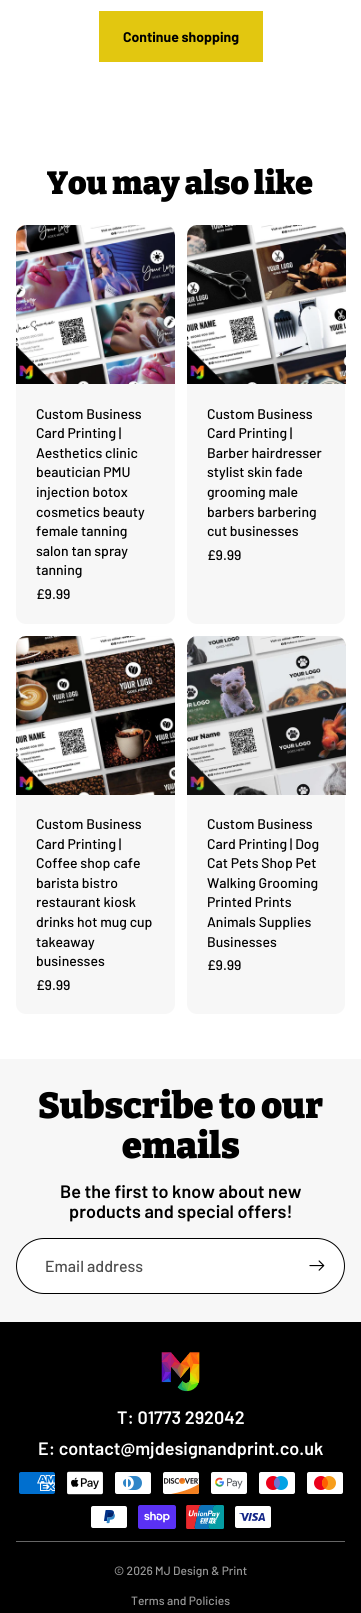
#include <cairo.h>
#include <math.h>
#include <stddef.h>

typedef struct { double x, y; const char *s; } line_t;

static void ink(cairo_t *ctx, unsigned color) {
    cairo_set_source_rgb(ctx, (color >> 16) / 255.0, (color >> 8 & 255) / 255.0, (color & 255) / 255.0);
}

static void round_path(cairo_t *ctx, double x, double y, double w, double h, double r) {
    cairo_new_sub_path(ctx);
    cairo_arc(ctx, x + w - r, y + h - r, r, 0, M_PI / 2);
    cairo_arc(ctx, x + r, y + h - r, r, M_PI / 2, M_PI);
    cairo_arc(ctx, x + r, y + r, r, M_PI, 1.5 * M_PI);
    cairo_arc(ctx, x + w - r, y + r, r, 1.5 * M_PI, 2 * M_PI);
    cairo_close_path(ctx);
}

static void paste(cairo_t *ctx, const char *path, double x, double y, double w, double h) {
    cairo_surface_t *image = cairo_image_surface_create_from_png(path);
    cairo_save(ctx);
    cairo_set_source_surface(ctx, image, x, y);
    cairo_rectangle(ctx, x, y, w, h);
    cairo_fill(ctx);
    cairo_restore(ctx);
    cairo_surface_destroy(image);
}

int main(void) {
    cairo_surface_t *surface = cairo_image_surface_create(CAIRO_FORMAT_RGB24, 361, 1613);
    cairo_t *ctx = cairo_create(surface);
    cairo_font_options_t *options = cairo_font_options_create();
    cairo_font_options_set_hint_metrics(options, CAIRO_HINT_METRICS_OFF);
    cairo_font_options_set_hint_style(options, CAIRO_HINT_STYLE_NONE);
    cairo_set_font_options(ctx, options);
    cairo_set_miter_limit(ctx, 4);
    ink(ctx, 0xFFFFFF);
    cairo_paint(ctx);
    ink(ctx, 0xE2C710);
    cairo_rectangle(ctx, 99, 11, 164, 51);
    cairo_fill(ctx);
    cairo_select_font_face(ctx, "Barlow", CAIRO_FONT_SLANT_NORMAL, CAIRO_FONT_WEIGHT_BOLD);
    cairo_set_font_size(ctx, 14);
    ink(ctx, 0x000000);
    cairo_move_to(ctx, 123, 42);
    cairo_show_text(ctx, "Continue shopping");
    cairo_select_font_face(ctx, "Bitter Black", CAIRO_FONT_SLANT_NORMAL, CAIRO_FONT_WEIGHT_NORMAL);
    cairo_set_font_size(ctx, 32);
    cairo_move_to(ctx, 47, 194);
    cairo_show_text(ctx, "You may also like");
    ink(ctx, 0xF7F7F7);
    round_path(ctx, 16, 225, 159, 399, 10);
    cairo_fill(ctx);
    paste(ctx, "media/1.png", 16, 225, 159, 159);
    cairo_select_font_face(ctx, "Barlow Medium", CAIRO_FONT_SLANT_NORMAL, CAIRO_FONT_WEIGHT_NORMAL);
    cairo_set_font_size(ctx, 14);
    ink(ctx, 0x000000);
    {
        static const line_t items[] = {
            {36, 419, "Custom Business"},
            {36, 438, "Card Printing |"},
            {36, 458, "Aesthetics clinic"},
            {36, 477, "beautician PMU"},
            {36, 497, "injection botox"},
            {36, 517, "cosmetics beauty"},
            {36, 536, "female tanning"},
            {36, 556, "salon tan spray"},
            {36, 575, "tanning"},
            {36, 599, "£9.99"},
        };
        for (size_t i = 0; i < sizeof items / sizeof *items; i++) {
            cairo_move_to(ctx, items[i].x, items[i].y);
            cairo_show_text(ctx, items[i].s);
        }
    }
    ink(ctx, 0xF7F7F7);
    round_path(ctx, 187, 225, 158, 399, 10);
    cairo_fill(ctx);
    paste(ctx, "media/2.png", 187, 225, 159, 159);
    ink(ctx, 0x000000);
    {
        static const line_t items[] = {
            {207, 419, "Custom Business"},
            {207, 438, "Card Printing |"},
            {207, 458, "Barber hairdresser"},
            {207, 477, "stylist skin fade"},
            {207, 497, "grooming male"},
            {207, 517, "barbers barbering"},
            {207, 536, "cut businesses"},
            {207, 560, "£9.99"},
        };
        for (size_t i = 0; i < sizeof items / sizeof *items; i++) {
            cairo_move_to(ctx, items[i].x, items[i].y);
            cairo_show_text(ctx, items[i].s);
        }
    }
    ink(ctx, 0xF7F7F7);
    round_path(ctx, 16, 636, 159, 378, 10);
    cairo_fill(ctx);
    paste(ctx, "media/3.png", 16, 636, 159, 159);
    ink(ctx, 0x000000);
    {
        static const line_t items[] = {
            {36, 829, "Custom Business"},
            {36, 849, "Card Printing |"},
            {36, 868, "Coffee shop cafe"},
            {36, 888, "barista bistro"},
            {36, 907, "restaurant kiosk"},
            {36, 927, "drinks hot mug cup"},
            {36, 947, "takeaway"},
            {36, 966, "businesses"},
            {36, 990, "£9.99"},
        };
        for (size_t i = 0; i < sizeof items / sizeof *items; i++) {
            cairo_move_to(ctx, items[i].x, items[i].y);
            cairo_show_text(ctx, items[i].s);
        }
    }
    ink(ctx, 0xF7F7F7);
    round_path(ctx, 187, 636, 158, 378, 10);
    cairo_fill(ctx);
    paste(ctx, "media/4.png", 187, 636, 159, 159);
    ink(ctx, 0x000000);
    {
        static const line_t items[] = {
            {207, 829, "Custom Business"},
            {207, 849, "Card Printing | Dog"},
            {207, 868, "Cat Pets Shop Pet"},
            {207, 888, "Walking Grooming"},
            {207, 907, "Printed Prints"},
            {207, 927, "Animals Supplies"},
            {207, 947, "Businesses"},
            {207, 970, "£9.99"},
        };
        for (size_t i = 0; i < sizeof items / sizeof *items; i++) {
            cairo_move_to(ctx, items[i].x, items[i].y);
            cairo_show_text(ctx, items[i].s);
        }
    }
    ink(ctx, 0xF7F7F7);
    cairo_rectangle(ctx, 0, 1059, 361, 263);
    cairo_fill(ctx);
    cairo_select_font_face(ctx, "Bitter Black", CAIRO_FONT_SLANT_NORMAL, CAIRO_FONT_WEIGHT_NORMAL);
    cairo_set_font_size(ctx, 36);
    ink(ctx, 0x000000);
    cairo_move_to(ctx, 38, 1118);
    cairo_show_text(ctx, "Subscribe to our");
    cairo_move_to(ctx, 122, 1158);
    cairo_show_text(ctx, "emails");
    cairo_select_font_face(ctx, "Barlow SemiBold", CAIRO_FONT_SLANT_NORMAL, CAIRO_FONT_WEIGHT_NORMAL);
    cairo_set_font_size(ctx, 18);
    cairo_move_to(ctx, 60, 1198);
    cairo_show_text(ctx, "Be the first to know about new");
    cairo_move_to(ctx, 69, 1218);
    cairo_show_text(ctx, "products and special offers!");
    ink(ctx, 0xFFFFFF);
    round_path(ctx, 16.5, 1238.5, 328, 55, 27.5);
    cairo_fill_preserve(ctx);
    ink(ctx, 0x000000);
    cairo_set_line_width(ctx, 1);
    cairo_stroke(ctx);
    cairo_select_font_face(ctx, "Barlow Medium", CAIRO_FONT_SLANT_NORMAL, CAIRO_FONT_WEIGHT_NORMAL);
    cairo_set_font_size(ctx, 16);
    ink(ctx, 0x4D4D4D);
    cairo_move_to(ctx, 45, 1272);
    cairo_show_text(ctx, "Email address");
    paste(ctx, "media/5.png", 309, 1260, 16, 11);
    ink(ctx, 0x000000);
    cairo_rectangle(ctx, 0, 1322, 361, 291);
    cairo_fill(ctx);
    paste(ctx, "media/6.png", 161, 1352, 39, 40);
    cairo_select_font_face(ctx, "Barlow SemiBold", CAIRO_FONT_SLANT_NORMAL, CAIRO_FONT_WEIGHT_NORMAL);
    cairo_set_font_size(ctx, 18);
    ink(ctx, 0xFFFFFF);
    cairo_move_to(ctx, 117, 1424);
    cairo_show_text(ctx, "T: 01773 292042");
    cairo_move_to(ctx, 38, 1455);
    cairo_show_text(ctx, "E: contact@mjdesignandprint.co.uk");
    paste(ctx, "media/7.png", 19, 1472, 36, 22);
    paste(ctx, "media/8.png", 67, 1471, 36, 24);
    paste(ctx, "media/9.png", 115, 1472, 36, 22);
    paste(ctx, "media/10.png", 163, 1472, 37, 22);
    paste(ctx, "media/11.png", 211, 1472, 36, 22);
    paste(ctx, "media/12.png", 259, 1472, 36, 22);
    paste(ctx, "media/13.png", 307, 1472, 36, 22);
    paste(ctx, "media/14.png", 91, 1506, 36, 22);
    paste(ctx, "media/15.png", 138, 1505, 38, 24);
    paste(ctx, "media/16.png", 186, 1505, 38, 24);
    paste(ctx, "media/17.png", 235, 1506, 36, 22);
    ink(ctx, 0x666666);
    cairo_rectangle(ctx, 16, 1541, 329, 1);
    cairo_fill(ctx);
    cairo_select_font_face(ctx, "Barlow Medium", CAIRO_FONT_SLANT_NORMAL, CAIRO_FONT_WEIGHT_NORMAL);
    cairo_set_font_size(ctx, 12);
    ink(ctx, 0x999999);
    cairo_move_to(ctx, 114, 1575);
    cairo_show_text(ctx, "© 2026 MJ Design & Print");
    cairo_move_to(ctx, 131, 1605);
    cairo_show_text(ctx, "Terms and Policies");
    cairo_surface_write_to_png(surface, "image.png");
    cairo_font_options_destroy(options);
    cairo_destroy(ctx);
    cairo_surface_destroy(surface);
    return 0;
}
